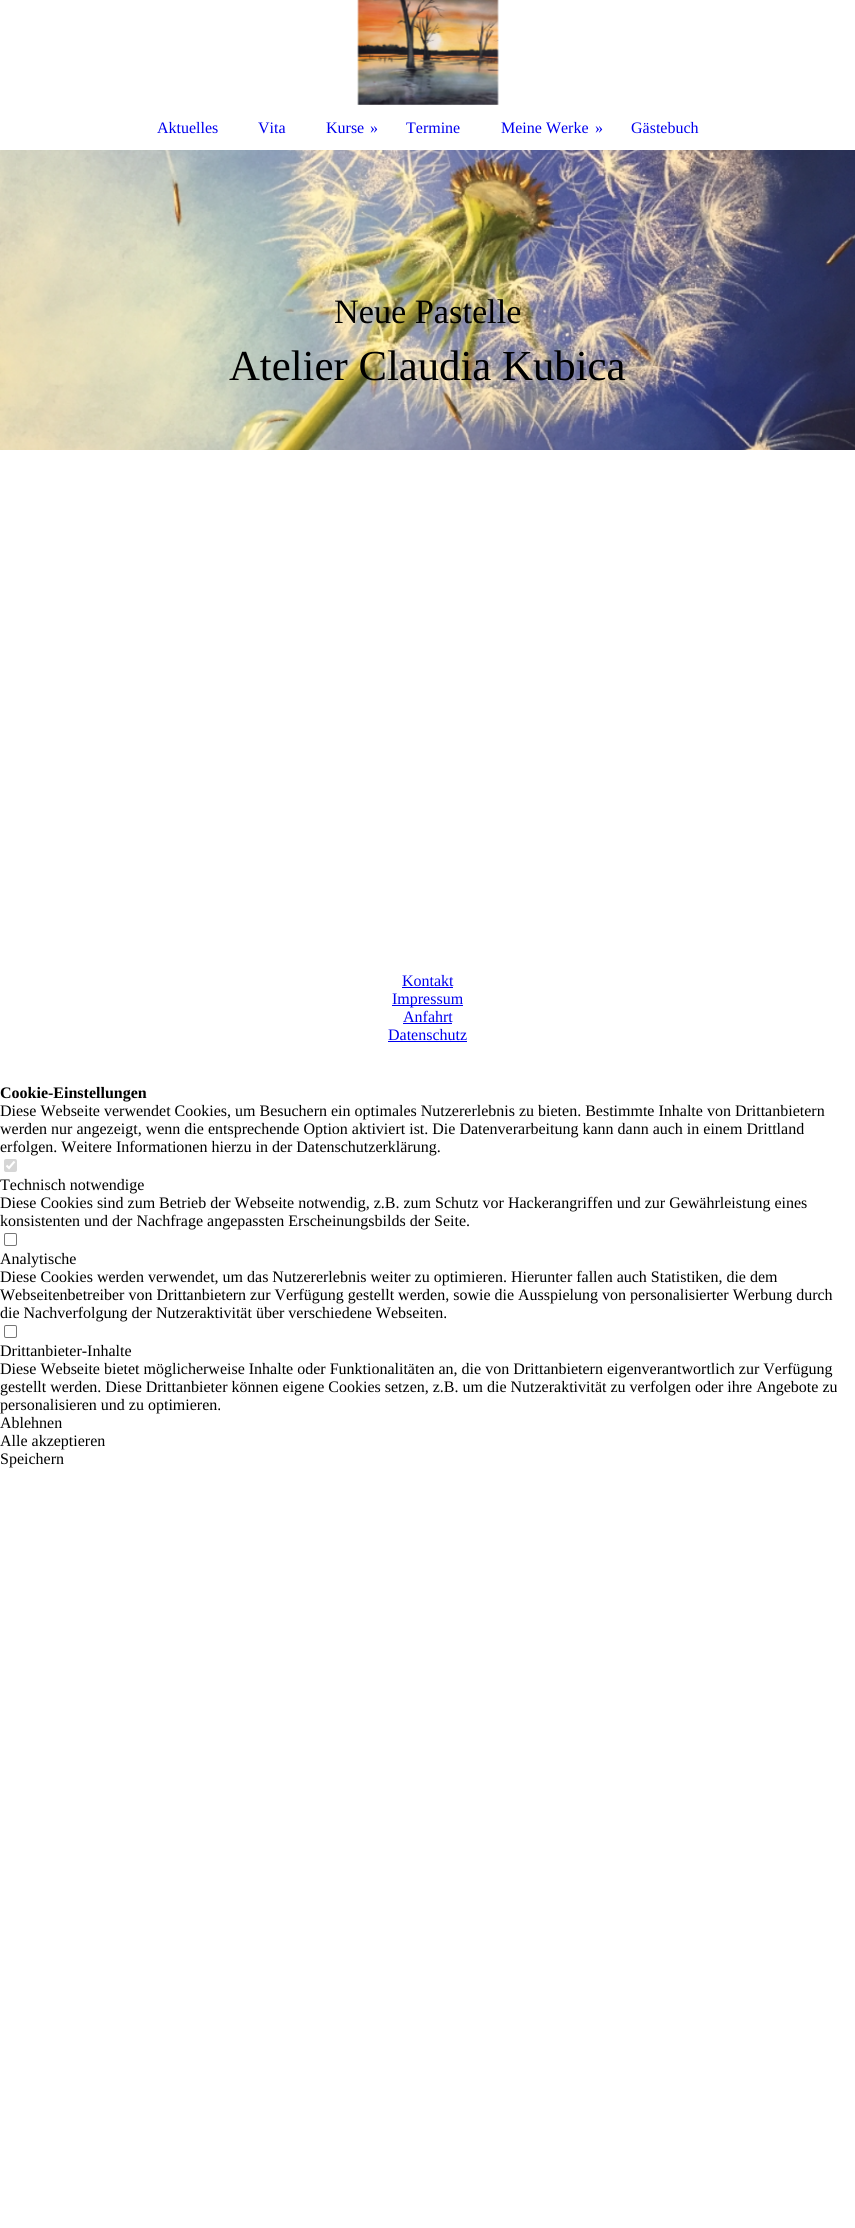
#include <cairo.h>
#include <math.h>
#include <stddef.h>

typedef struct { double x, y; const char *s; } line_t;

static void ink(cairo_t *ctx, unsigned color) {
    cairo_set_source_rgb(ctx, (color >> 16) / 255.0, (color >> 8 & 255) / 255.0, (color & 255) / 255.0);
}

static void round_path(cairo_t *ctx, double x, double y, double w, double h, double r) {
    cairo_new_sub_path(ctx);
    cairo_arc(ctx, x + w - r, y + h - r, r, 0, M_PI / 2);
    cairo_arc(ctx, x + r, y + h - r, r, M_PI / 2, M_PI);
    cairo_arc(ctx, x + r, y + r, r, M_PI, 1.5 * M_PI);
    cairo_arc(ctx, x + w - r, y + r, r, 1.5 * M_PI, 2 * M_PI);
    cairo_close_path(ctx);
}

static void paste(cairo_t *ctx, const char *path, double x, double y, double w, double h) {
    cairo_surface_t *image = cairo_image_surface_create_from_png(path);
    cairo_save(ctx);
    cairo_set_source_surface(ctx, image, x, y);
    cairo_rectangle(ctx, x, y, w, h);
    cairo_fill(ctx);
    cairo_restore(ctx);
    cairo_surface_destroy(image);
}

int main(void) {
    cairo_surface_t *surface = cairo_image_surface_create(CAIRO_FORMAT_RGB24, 855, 2228);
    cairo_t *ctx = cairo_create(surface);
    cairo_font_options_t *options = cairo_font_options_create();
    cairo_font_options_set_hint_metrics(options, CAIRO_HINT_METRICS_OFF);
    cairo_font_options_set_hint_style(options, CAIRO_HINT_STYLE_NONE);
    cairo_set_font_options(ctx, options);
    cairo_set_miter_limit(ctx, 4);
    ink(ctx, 0xFFFFFF);
    cairo_paint(ctx);
    paste(ctx, "media/1.png", 357, 0, 142, 105);
    cairo_select_font_face(ctx, "Liberation Serif", CAIRO_FONT_SLANT_NORMAL, CAIRO_FONT_WEIGHT_NORMAL);
    cairo_set_font_size(ctx, 16);
    ink(ctx, 0x0000EE);
    {
        static const line_t items[] = {
            {157, 133, "Aktuelles"},
            {258, 133, "Vita"},
            {326, 133, "Kurse"},
            {370, 133, "»"},
            {406, 133, "Termine"},
            {501, 133, "Meine Werke"},
            {595, 133, "»"},
            {631, 133, "Gästebuch"},
        };
        for (size_t i = 0; i < sizeof items / sizeof *items; i++) {
            cairo_move_to(ctx, items[i].x, items[i].y);
            cairo_show_text(ctx, items[i].s);
        }
    }
    paste(ctx, "media/2.png", 0, 150, 855, 300);
    cairo_set_font_size(ctx, 34.25);
    ink(ctx, 0x000000);
    cairo_move_to(ctx, 334, 323);
    cairo_show_text(ctx, "Neue Pastelle");
    cairo_set_font_size(ctx, 42.75);
    cairo_move_to(ctx, 229, 380);
    cairo_show_text(ctx, "Atelier Claudia Kubica");
    cairo_set_font_size(ctx, 16);
    ink(ctx, 0x0000EE);
    cairo_move_to(ctx, 402, 986);
    cairo_show_text(ctx, "Kontakt");
    cairo_rectangle(ctx, 402, 987, 51, 1);
    cairo_fill(ctx);
    cairo_rectangle(ctx, 392, 1005, 71, 1);
    cairo_fill(ctx);
    cairo_move_to(ctx, 392, 1004);
    cairo_show_text(ctx, "Impressum");
    cairo_move_to(ctx, 403, 1022);
    cairo_show_text(ctx, "Anfahrt");
    cairo_rectangle(ctx, 403, 1023, 49, 1);
    cairo_fill(ctx);
    cairo_move_to(ctx, 388, 1040);
    cairo_show_text(ctx, "Datenschutz");
    cairo_rectangle(ctx, 388, 1041, 79, 1);
    cairo_fill(ctx);
    cairo_select_font_face(ctx, "Liberation Serif", CAIRO_FONT_SLANT_NORMAL, CAIRO_FONT_WEIGHT_BOLD);
    ink(ctx, 0x000000);
    cairo_move_to(ctx, 0, 1098);
    cairo_show_text(ctx, "Cookie-Einstellungen");
    cairo_select_font_face(ctx, "Liberation Serif", CAIRO_FONT_SLANT_NORMAL, CAIRO_FONT_WEIGHT_NORMAL);
    {
        static const line_t items[] = {
            {0, 1116, "Diese Webseite verwendet Cookies, um Besuchern ein optimales Nutzererlebnis zu bieten. Bestimmte Inhalte von Drittanbietern"},
            {0, 1134, "werden nur angezeigt, wenn die entsprechende Option aktiviert ist. Die Datenverarbeitung kann dann auch in einem Drittland"},
            {0, 1152, "erfolgen. Weitere Informationen hierzu in der Datenschutzerklärung."},
        };
        for (size_t i = 0; i < sizeof items / sizeof *items; i++) {
            cairo_move_to(ctx, items[i].x, items[i].y);
            cairo_show_text(ctx, items[i].s);
        }
    }
    ink(ctx, 0xD6D6D6);
    round_path(ctx, 4, 1159, 13, 13, 2);
    cairo_fill(ctx);
    cairo_new_path(ctx);
    cairo_move_to(ctx, 6.5, 1165.5);
    cairo_line_to(ctx, 9, 1168);
    cairo_line_to(ctx, 14.5, 1161.5);
    ink(ctx, 0xFFFFFF);
    cairo_set_line_width(ctx, 2.1);
    cairo_stroke(ctx);
    ink(ctx, 0x000000);
    {
        static const line_t items[] = {
            {0, 1190, "Technisch notwendige"},
            {0, 1208, "Diese Cookies sind zum Betrieb der Webseite notwendig, z.B. zum Schutz vor Hackerangriffen und zur Gewährleistung eines"},
            {0, 1226, "konsistenten und der Nachfrage angepassten Erscheinungsbilds der Seite."},
        };
        for (size_t i = 0; i < sizeof items / sizeof *items; i++) {
            cairo_move_to(ctx, items[i].x, items[i].y);
            cairo_show_text(ctx, items[i].s);
        }
    }
    round_path(ctx, 4.5, 1233.5, 12, 12, 1.5);
    ink(ctx, 0x767676);
    cairo_set_line_width(ctx, 1);
    cairo_stroke(ctx);
    ink(ctx, 0x000000);
    {
        static const line_t items[] = {
            {0, 1264, "Analytische"},
            {0, 1282, "Diese Cookies werden verwendet, um das Nutzererlebnis weiter zu optimieren. Hierunter fallen auch Statistiken, die dem"},
            {0, 1300, "Webseitenbetreiber von Drittanbietern zur Verfügung gestellt werden, sowie die Ausspielung von personalisierter Werbung durch"},
            {0, 1318, "die Nachverfolgung der Nutzeraktivität über verschiedene Webseiten."},
        };
        for (size_t i = 0; i < sizeof items / sizeof *items; i++) {
            cairo_move_to(ctx, items[i].x, items[i].y);
            cairo_show_text(ctx, items[i].s);
        }
    }
    round_path(ctx, 4.5, 1325.5, 12, 12, 1.5);
    ink(ctx, 0x767676);
    cairo_stroke(ctx);
    ink(ctx, 0x000000);
    {
        static const line_t items[] = {
            {0, 1356, "Drittanbieter-Inhalte"},
            {0, 1374, "Diese Webseite bietet möglicherweise Inhalte oder Funktionalitäten an, die von Drittanbietern eigenverantwortlich zur Verfügung"},
            {0, 1392, "gestellt werden. Diese Drittanbieter können eigene Cookies setzen, z.B. um die Nutzeraktivität zu verfolgen oder ihre Angebote zu"},
            {0, 1410, "personalisieren und zu optimieren."},
            {0, 1428, "Ablehnen"},
            {0, 1446, "Alle akzeptieren"},
            {0, 1464, "Speichern"},
        };
        for (size_t i = 0; i < sizeof items / sizeof *items; i++) {
            cairo_move_to(ctx, items[i].x, items[i].y);
            cairo_show_text(ctx, items[i].s);
        }
    }
    cairo_surface_write_to_png(surface, "image.png");
    cairo_font_options_destroy(options);
    cairo_destroy(ctx);
    cairo_surface_destroy(surface);
    return 0;
}
